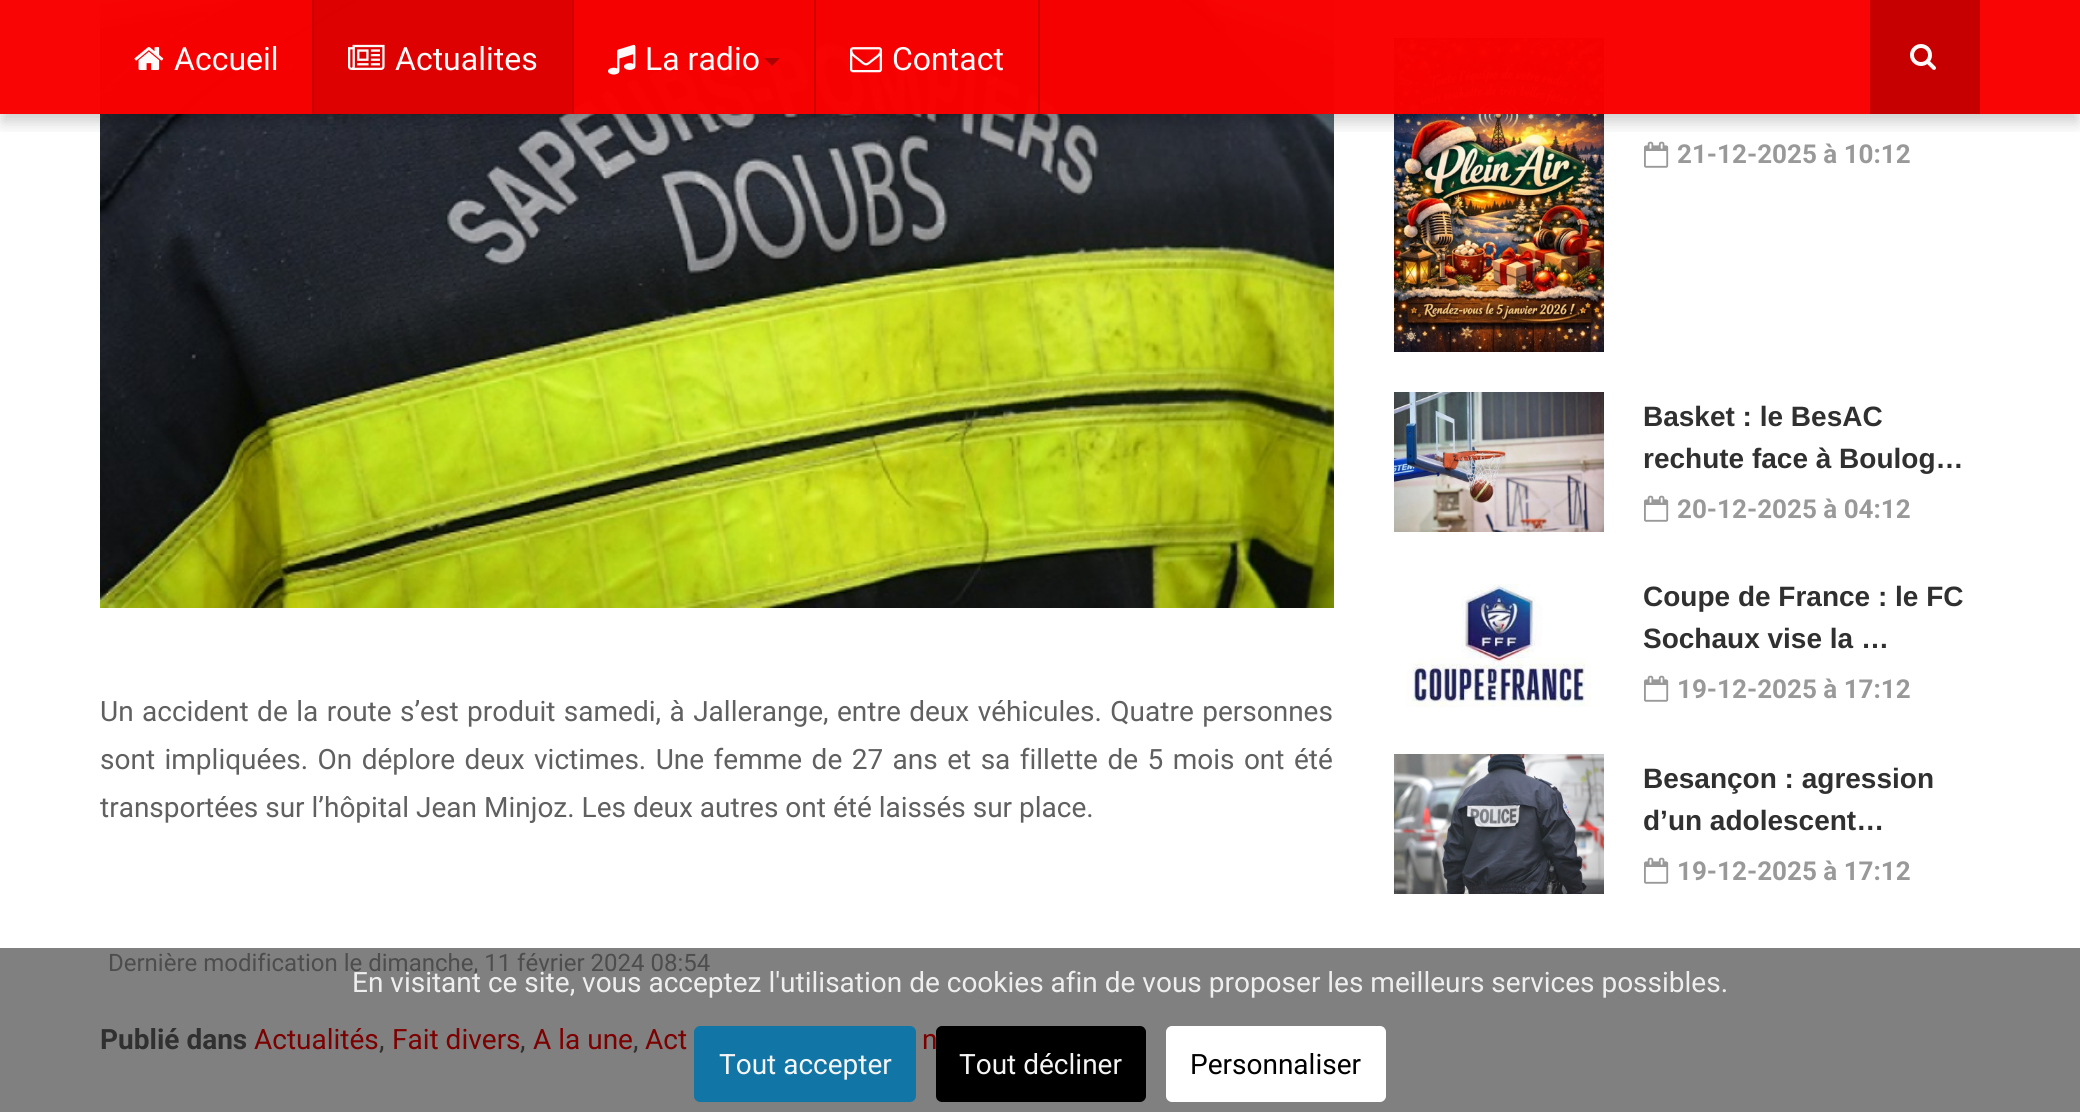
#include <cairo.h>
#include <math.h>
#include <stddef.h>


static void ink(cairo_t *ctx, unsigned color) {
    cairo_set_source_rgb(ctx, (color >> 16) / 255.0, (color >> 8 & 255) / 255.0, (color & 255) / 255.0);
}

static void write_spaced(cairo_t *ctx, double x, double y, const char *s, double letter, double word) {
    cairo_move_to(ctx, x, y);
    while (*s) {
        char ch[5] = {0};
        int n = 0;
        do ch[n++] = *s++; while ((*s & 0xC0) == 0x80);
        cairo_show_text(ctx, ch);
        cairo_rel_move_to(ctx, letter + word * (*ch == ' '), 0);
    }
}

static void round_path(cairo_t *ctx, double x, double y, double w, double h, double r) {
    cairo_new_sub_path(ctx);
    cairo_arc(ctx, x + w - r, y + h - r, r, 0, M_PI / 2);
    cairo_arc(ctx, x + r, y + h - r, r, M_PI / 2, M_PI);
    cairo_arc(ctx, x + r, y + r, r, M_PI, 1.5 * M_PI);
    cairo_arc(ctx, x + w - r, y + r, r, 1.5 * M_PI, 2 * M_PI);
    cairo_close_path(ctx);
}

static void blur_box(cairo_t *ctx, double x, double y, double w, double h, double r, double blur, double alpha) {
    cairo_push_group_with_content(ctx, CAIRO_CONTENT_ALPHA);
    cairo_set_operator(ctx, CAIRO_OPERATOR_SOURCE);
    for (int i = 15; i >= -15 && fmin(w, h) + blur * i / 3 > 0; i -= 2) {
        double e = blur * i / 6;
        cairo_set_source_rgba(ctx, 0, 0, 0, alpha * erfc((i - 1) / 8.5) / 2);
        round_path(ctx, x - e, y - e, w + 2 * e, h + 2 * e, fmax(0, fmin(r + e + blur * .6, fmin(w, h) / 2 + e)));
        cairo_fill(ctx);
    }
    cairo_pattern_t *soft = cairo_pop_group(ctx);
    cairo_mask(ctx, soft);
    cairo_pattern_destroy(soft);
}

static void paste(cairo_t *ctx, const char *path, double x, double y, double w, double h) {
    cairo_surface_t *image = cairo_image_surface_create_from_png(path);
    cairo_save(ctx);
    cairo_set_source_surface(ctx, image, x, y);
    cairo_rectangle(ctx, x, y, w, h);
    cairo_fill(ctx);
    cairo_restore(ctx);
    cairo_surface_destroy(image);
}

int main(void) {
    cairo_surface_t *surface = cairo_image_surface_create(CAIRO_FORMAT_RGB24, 2080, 1112);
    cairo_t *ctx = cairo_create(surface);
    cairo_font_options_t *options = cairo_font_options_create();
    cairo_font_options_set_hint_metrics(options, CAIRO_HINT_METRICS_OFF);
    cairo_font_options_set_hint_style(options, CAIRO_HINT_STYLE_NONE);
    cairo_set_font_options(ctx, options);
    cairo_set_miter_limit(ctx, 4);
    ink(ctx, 0xFFFFFF);
    cairo_paint(ctx);
    ink(ctx, 0x808080);
    cairo_rectangle(ctx, 0, 948, 2080, 164);
    cairo_fill(ctx);
    paste(ctx, "media/6.png", 100, 0, 1234, 608);
    paste(ctx, "media/7.png", 1394, 38, 210, 314);
    paste(ctx, "media/8.png", 1644, 141, 25, 27);
    cairo_save(ctx);
    cairo_rectangle(ctx, 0, 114, 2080, 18);
    cairo_clip(ctx);
    ink(ctx, 0x000000);
    blur_box(ctx, 2, 12, 2076, 110, 0, 8, 0.2);
    cairo_restore(ctx);
    cairo_set_source_rgba(ctx, 0.973, 0, 0, 0.98);
    cairo_rectangle(ctx, 0, 0, 2080, 114);
    cairo_fill(ctx);
    ink(ctx, 0xCE0101);
    cairo_rectangle(ctx, 312, 0, 2, 114);
    cairo_fill(ctx);
    paste(ctx, "media/1.png", 134, 47, 30, 23);
    cairo_select_font_face(ctx, "Roboto", CAIRO_FONT_SLANT_NORMAL, CAIRO_FONT_WEIGHT_NORMAL);
    cairo_set_font_size(ctx, 32);
    ink(ctx, 0xFFFAFA);
    cairo_move_to(ctx, 174, 70);
    cairo_show_text(ctx, "Accueil");
    cairo_set_source_rgba(ctx, 0, 0, 0, 0.16);
    cairo_rectangle(ctx, 572, 0, 2, 114);
    cairo_fill(ctx);
    cairo_set_source_rgba(ctx, 0, 0, 0, 0.1);
    cairo_rectangle(ctx, 314, 0, 258, 114);
    cairo_fill(ctx);
    paste(ctx, "media/2.png", 348, 44, 37, 26);
    ink(ctx, 0xFFFAFA);
    cairo_move_to(ctx, 395, 70);
    cairo_show_text(ctx, "Actualites");
    cairo_set_source_rgba(ctx, 0, 0, 0, 0.16);
    cairo_rectangle(ctx, 814, 0, 2, 114);
    cairo_fill(ctx);
    paste(ctx, "media/3.png", 608, 44, 28, 31);
    ink(ctx, 0xFFFAFA);
    cairo_move_to(ctx, 645, 70);
    cairo_show_text(ctx, "La radio");
    ink(ctx, 0xAE0202);
    cairo_new_path(ctx);
    cairo_move_to(ctx, 764, 58);
    cairo_line_to(ctx, 780, 58);
    cairo_line_to(ctx, 772, 66);
    cairo_close_path(ctx);
    cairo_fill(ctx);
    cairo_set_source_rgba(ctx, 0, 0, 0, 0.16);
    cairo_rectangle(ctx, 1038, 0, 2, 114);
    cairo_fill(ctx);
    paste(ctx, "media/4.png", 850, 47, 32, 26);
    ink(ctx, 0xFFFAFA);
    cairo_move_to(ctx, 892, 70);
    cairo_show_text(ctx, "Contact");
    cairo_set_source_rgba(ctx, 0.773, 0, 0, 0.98);
    cairo_rectangle(ctx, 1870, 0, 110, 114);
    cairo_fill(ctx);
    paste(ctx, "media/5.png", 1910, 44, 26, 26);
    cairo_set_font_size(ctx, 28);
    ink(ctx, 0x606060);
    write_spaced(ctx, 100, 721, "Un accident de la route s’est produit samedi, à Jallerange, entre deux véhicules. Quatre personnes", 0, 1.5);
    write_spaced(ctx, 100, 769, "sont impliquées. On déplore deux victimes. Une femme de 27 ans et sa fillette de 5 mois ont été", 0, 2.5);
    cairo_move_to(ctx, 100, 817);
    cairo_show_text(ctx, "transportées sur l’hôpital Jean Minjoz. Les deux autres ont été laissés sur place.");
    cairo_set_font_size(ctx, 24);
    ink(ctx, 0x4D4D4D);
    cairo_move_to(ctx, 108, 971);
    cairo_show_text(ctx, "Dernière modification le dimanche, 11 février 2024 08:54");
    cairo_select_font_face(ctx, "Roboto", CAIRO_FONT_SLANT_NORMAL, CAIRO_FONT_WEIGHT_BOLD);
    cairo_set_font_size(ctx, 28);
    ink(ctx, 0x303030);
    cairo_move_to(ctx, 100, 1049);
    cairo_show_text(ctx, "Publié dans");
    cairo_select_font_face(ctx, "Roboto", CAIRO_FONT_SLANT_NORMAL, CAIRO_FONT_WEIGHT_NORMAL);
    ink(ctx, 0x7C0000);
    cairo_move_to(ctx, 254, 1049);
    cairo_show_text(ctx, "Actualités");
    ink(ctx, 0x303030);
    cairo_move_to(ctx, 379, 1049);
    cairo_show_text(ctx, ",");
    ink(ctx, 0x7C0000);
    cairo_move_to(ctx, 392, 1049);
    cairo_show_text(ctx, "Fait divers");
    ink(ctx, 0x303030);
    cairo_move_to(ctx, 520, 1049);
    cairo_show_text(ctx, ",");
    ink(ctx, 0x7C0000);
    cairo_move_to(ctx, 533, 1049);
    cairo_show_text(ctx, "A la une");
    ink(ctx, 0x303030);
    cairo_move_to(ctx, 633, 1049);
    cairo_show_text(ctx, ",");
    ink(ctx, 0x7C0000);
    cairo_move_to(ctx, 645, 1049);
    cairo_show_text(ctx, "Act");
    cairo_move_to(ctx, 922, 1049);
    cairo_show_text(ctx, "n");
    cairo_select_font_face(ctx, "Roboto", CAIRO_FONT_SLANT_NORMAL, CAIRO_FONT_WEIGHT_BOLD);
    cairo_set_font_size(ctx, 26);
    ink(ctx, 0x999999);
    cairo_move_to(ctx, 1677, 163);
    cairo_show_text(ctx, "21-12-2025 à 10:12");
    paste(ctx, "media/9.png", 1394, 392, 210, 140);
    cairo_select_font_face(ctx, "Liberation Sans", CAIRO_FONT_SLANT_NORMAL, CAIRO_FONT_WEIGHT_BOLD);
    cairo_set_font_size(ctx, 28);
    ink(ctx, 0x303030);
    cairo_move_to(ctx, 1643, 426);
    cairo_show_text(ctx, "Basket : le BesAC");
    cairo_move_to(ctx, 1643, 468);
    cairo_show_text(ctx, "rechute face à Boulog…");
    paste(ctx, "media/8.png", 1644, 495, 25, 27);
    cairo_select_font_face(ctx, "Roboto", CAIRO_FONT_SLANT_NORMAL, CAIRO_FONT_WEIGHT_BOLD);
    cairo_set_font_size(ctx, 26);
    ink(ctx, 0x999999);
    cairo_move_to(ctx, 1677, 518);
    cairo_show_text(ctx, "20-12-2025 à 04:12");
    paste(ctx, "media/10.png", 1406, 584, 185, 123);
    cairo_select_font_face(ctx, "Liberation Sans", CAIRO_FONT_SLANT_NORMAL, CAIRO_FONT_WEIGHT_BOLD);
    cairo_set_font_size(ctx, 28);
    ink(ctx, 0x303030);
    cairo_move_to(ctx, 1643, 606);
    cairo_show_text(ctx, "Coupe de France : le FC");
    cairo_move_to(ctx, 1643, 648);
    cairo_show_text(ctx, "Sochaux vise la …");
    paste(ctx, "media/8.png", 1644, 675, 25, 27);
    cairo_select_font_face(ctx, "Roboto", CAIRO_FONT_SLANT_NORMAL, CAIRO_FONT_WEIGHT_BOLD);
    cairo_set_font_size(ctx, 26);
    ink(ctx, 0x999999);
    cairo_move_to(ctx, 1677, 698);
    cairo_show_text(ctx, "19-12-2025 à 17:12");
    paste(ctx, "media/11.png", 1394, 754, 210, 140);
    cairo_select_font_face(ctx, "Liberation Sans", CAIRO_FONT_SLANT_NORMAL, CAIRO_FONT_WEIGHT_BOLD);
    cairo_set_font_size(ctx, 28);
    ink(ctx, 0x303030);
    cairo_move_to(ctx, 1643, 788);
    cairo_show_text(ctx, "Besançon : agression");
    cairo_move_to(ctx, 1643, 830);
    cairo_show_text(ctx, "d’un adolescent…");
    paste(ctx, "media/8.png", 1644, 857, 25, 27);
    cairo_select_font_face(ctx, "Roboto", CAIRO_FONT_SLANT_NORMAL, CAIRO_FONT_WEIGHT_BOLD);
    cairo_set_font_size(ctx, 26);
    ink(ctx, 0x999999);
    cairo_move_to(ctx, 1677, 880);
    cairo_show_text(ctx, "19-12-2025 à 17:12");
    cairo_select_font_face(ctx, "Roboto", CAIRO_FONT_SLANT_NORMAL, CAIRO_FONT_WEIGHT_NORMAL);
    cairo_set_font_size(ctx, 28);
    ink(ctx, 0xEEEEEE);
    cairo_move_to(ctx, 352, 992);
    cairo_show_text(ctx, "En visitant ce site, vous acceptez l'utilisation de cookies afin de vous proposer les meilleurs services possibles.");
    ink(ctx, 0x1176A6);
    round_path(ctx, 696, 1028, 218, 72, 4);
    cairo_fill_preserve(ctx);
    cairo_set_line_width(ctx, 4);
    cairo_stroke(ctx);
    ink(ctx, 0xF5F5F5);
    cairo_move_to(ctx, 719, 1074);
    cairo_show_text(ctx, "Tout accepter");
    ink(ctx, 0x000000);
    round_path(ctx, 938, 1028, 206, 72, 4);
    cairo_fill_preserve(ctx);
    cairo_stroke(ctx);
    ink(ctx, 0xF5F5F5);
    cairo_move_to(ctx, 959, 1074);
    cairo_show_text(ctx, "Tout décliner");
    ink(ctx, 0xFFFFFF);
    round_path(ctx, 1168, 1028, 216, 72, 4);
    cairo_fill_preserve(ctx);
    cairo_stroke(ctx);
    ink(ctx, 0x000000);
    cairo_move_to(ctx, 1190, 1074);
    cairo_show_text(ctx, "Personnaliser");
    cairo_surface_write_to_png(surface, "image.png");
    cairo_font_options_destroy(options);
    cairo_destroy(ctx);
    cairo_surface_destroy(surface);
    return 0;
}
